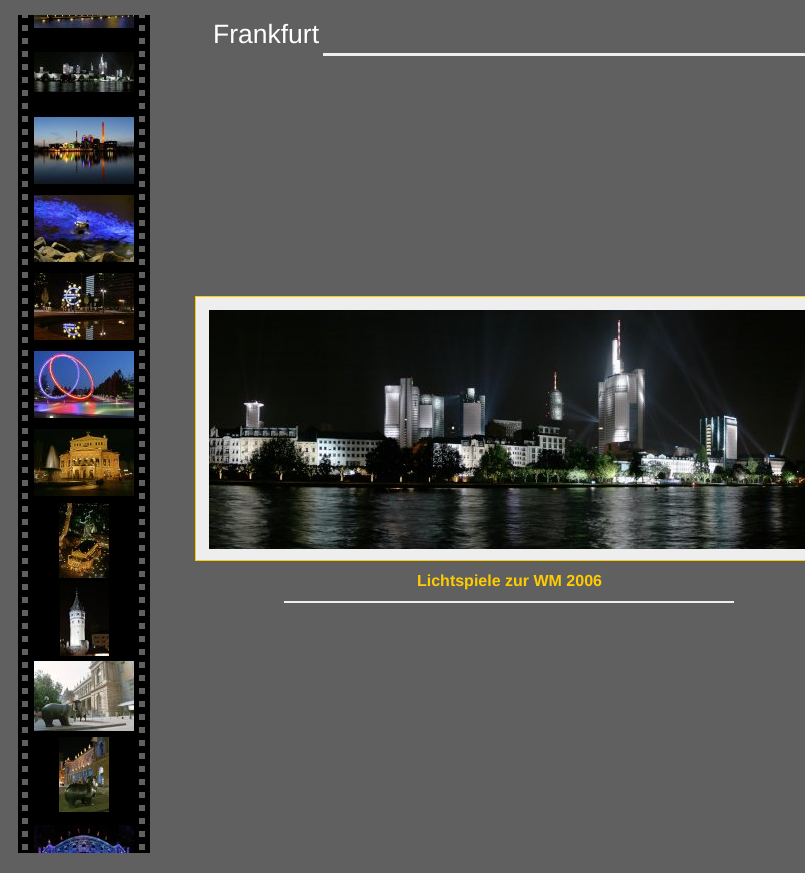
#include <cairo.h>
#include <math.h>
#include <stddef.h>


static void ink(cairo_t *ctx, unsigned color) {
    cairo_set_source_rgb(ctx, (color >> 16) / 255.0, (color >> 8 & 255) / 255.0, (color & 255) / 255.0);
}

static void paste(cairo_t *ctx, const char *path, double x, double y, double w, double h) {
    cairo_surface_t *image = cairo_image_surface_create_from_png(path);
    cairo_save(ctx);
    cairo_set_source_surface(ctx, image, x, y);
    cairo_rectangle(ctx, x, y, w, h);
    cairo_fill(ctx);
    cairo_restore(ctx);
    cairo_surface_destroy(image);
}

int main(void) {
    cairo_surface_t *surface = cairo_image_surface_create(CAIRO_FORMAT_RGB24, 805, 873);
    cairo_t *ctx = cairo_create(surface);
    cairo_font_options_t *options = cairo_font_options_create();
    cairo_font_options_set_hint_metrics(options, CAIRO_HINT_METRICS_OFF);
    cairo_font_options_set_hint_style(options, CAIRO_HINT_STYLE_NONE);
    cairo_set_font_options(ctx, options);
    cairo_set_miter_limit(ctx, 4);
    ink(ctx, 0x606060);
    cairo_paint(ctx);
    paste(ctx, "media/1.png", 18, 15, 132, 838);
    cairo_select_font_face(ctx, "Liberation Sans", CAIRO_FONT_SLANT_NORMAL, CAIRO_FONT_WEIGHT_NORMAL);
    cairo_set_font_size(ctx, 26.5);
    ink(ctx, 0xFFFFFF);
    cairo_move_to(ctx, 213, 43);
    cairo_show_text(ctx, "Frankfurt");
    ink(ctx, 0xEEEEEE);
    cairo_rectangle(ctx, 323, 53, 482, 3);
    cairo_fill(ctx);
    cairo_rectangle(ctx, 195.5, 296.5, 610, 264);
    ink(ctx, 0xFFCC00);
    cairo_set_line_width(ctx, 1);
    cairo_stroke(ctx);
    ink(ctx, 0xEEEEEE);
    cairo_rectangle(ctx, 196, 297, 609, 263);
    cairo_fill(ctx);
    paste(ctx, "media/2.png", 209, 310, 596, 239);
    cairo_select_font_face(ctx, "Liberation Sans", CAIRO_FONT_SLANT_NORMAL, CAIRO_FONT_WEIGHT_BOLD);
    cairo_set_font_size(ctx, 16);
    ink(ctx, 0xFFCC00);
    cairo_move_to(ctx, 417, 586);
    cairo_show_text(ctx, "Lichtspiele zur WM 2006");
    ink(ctx, 0xEEEEEE);
    cairo_rectangle(ctx, 284, 601, 450, 2);
    cairo_fill(ctx);
    cairo_surface_write_to_png(surface, "image.png");
    cairo_font_options_destroy(options);
    cairo_destroy(ctx);
    cairo_surface_destroy(surface);
    return 0;
}
